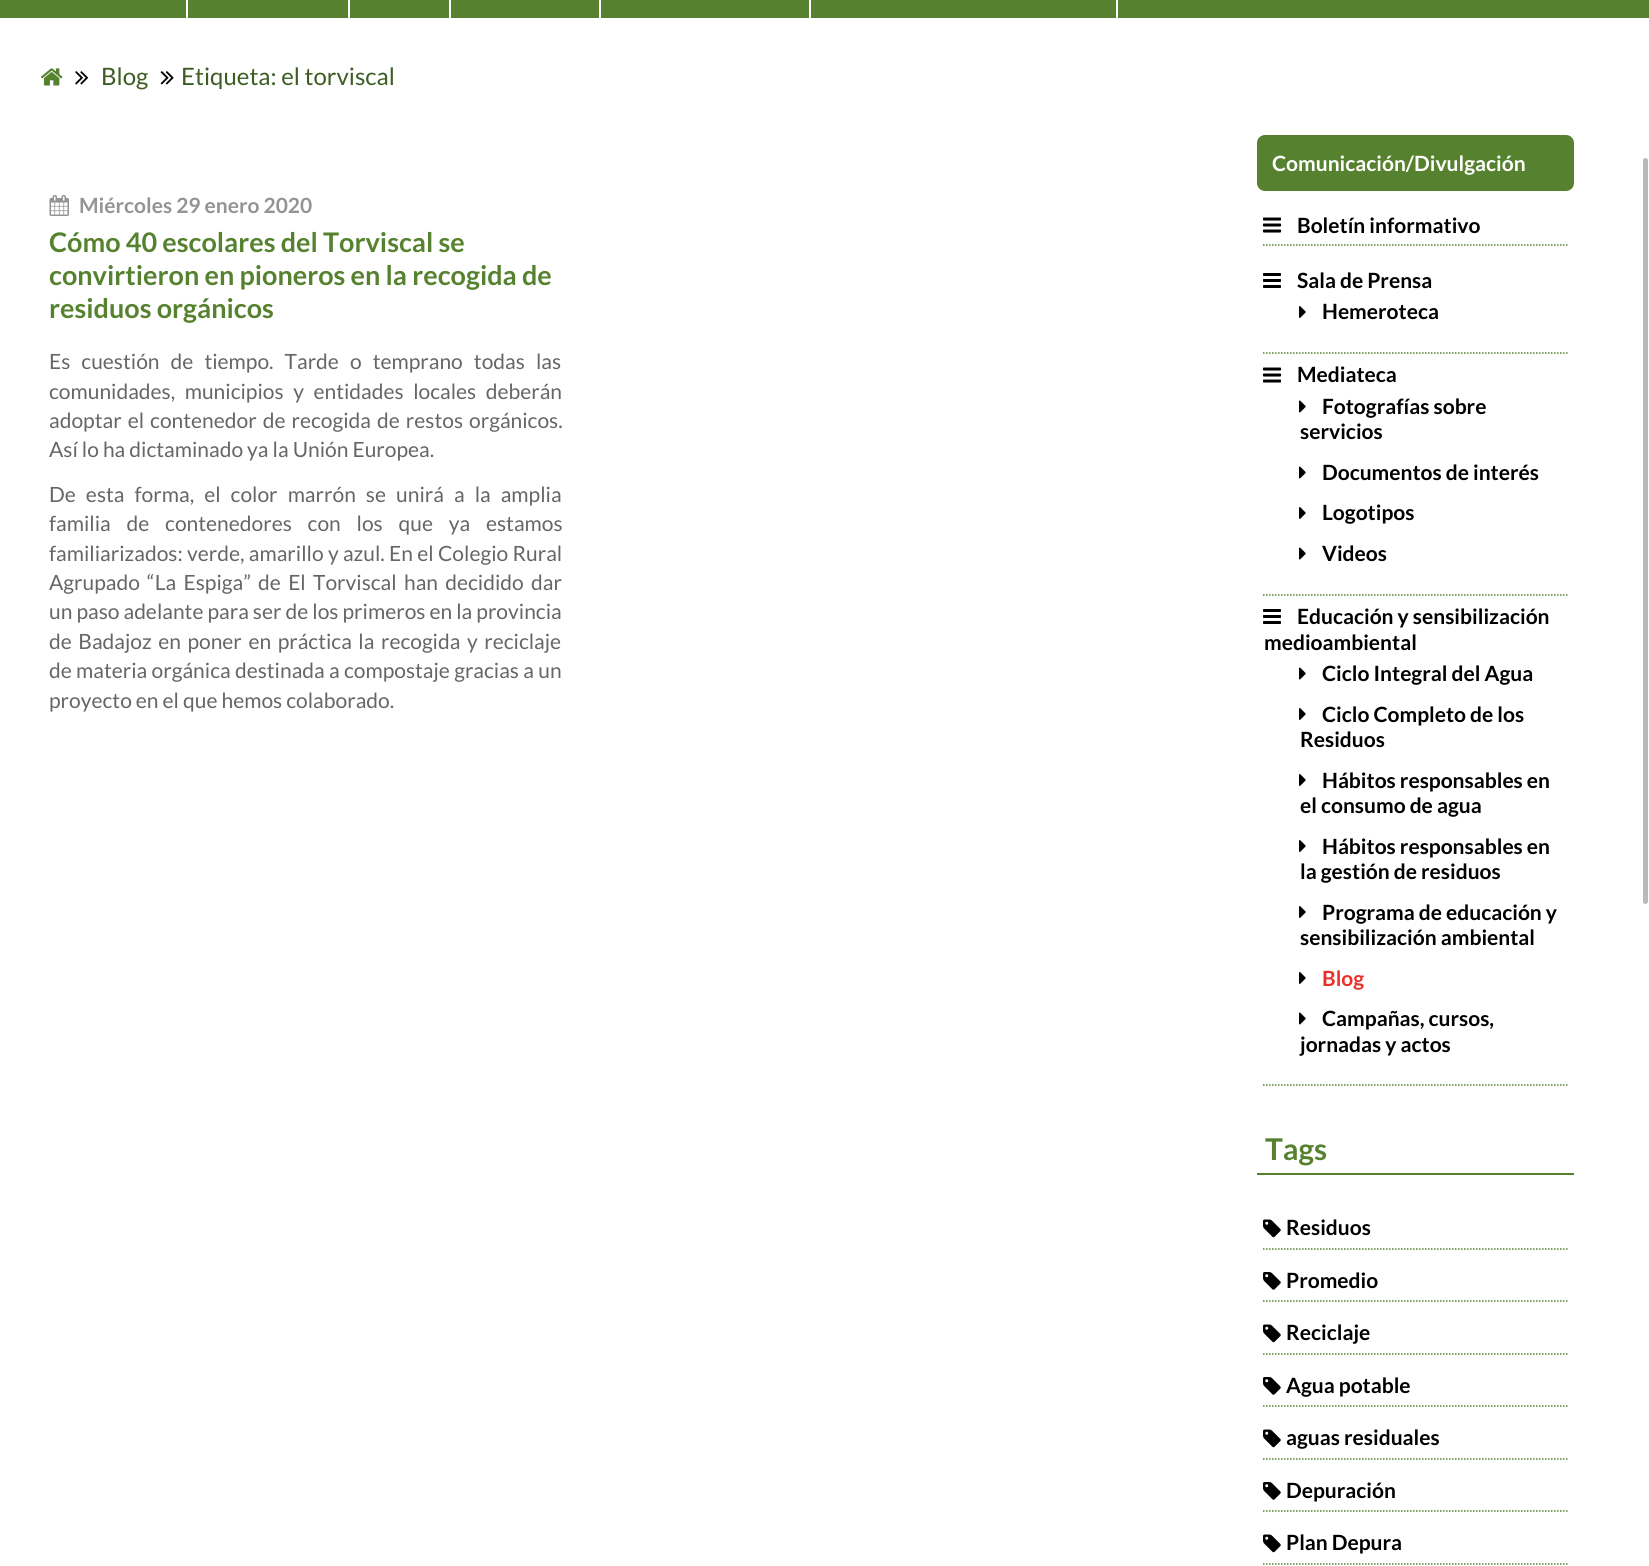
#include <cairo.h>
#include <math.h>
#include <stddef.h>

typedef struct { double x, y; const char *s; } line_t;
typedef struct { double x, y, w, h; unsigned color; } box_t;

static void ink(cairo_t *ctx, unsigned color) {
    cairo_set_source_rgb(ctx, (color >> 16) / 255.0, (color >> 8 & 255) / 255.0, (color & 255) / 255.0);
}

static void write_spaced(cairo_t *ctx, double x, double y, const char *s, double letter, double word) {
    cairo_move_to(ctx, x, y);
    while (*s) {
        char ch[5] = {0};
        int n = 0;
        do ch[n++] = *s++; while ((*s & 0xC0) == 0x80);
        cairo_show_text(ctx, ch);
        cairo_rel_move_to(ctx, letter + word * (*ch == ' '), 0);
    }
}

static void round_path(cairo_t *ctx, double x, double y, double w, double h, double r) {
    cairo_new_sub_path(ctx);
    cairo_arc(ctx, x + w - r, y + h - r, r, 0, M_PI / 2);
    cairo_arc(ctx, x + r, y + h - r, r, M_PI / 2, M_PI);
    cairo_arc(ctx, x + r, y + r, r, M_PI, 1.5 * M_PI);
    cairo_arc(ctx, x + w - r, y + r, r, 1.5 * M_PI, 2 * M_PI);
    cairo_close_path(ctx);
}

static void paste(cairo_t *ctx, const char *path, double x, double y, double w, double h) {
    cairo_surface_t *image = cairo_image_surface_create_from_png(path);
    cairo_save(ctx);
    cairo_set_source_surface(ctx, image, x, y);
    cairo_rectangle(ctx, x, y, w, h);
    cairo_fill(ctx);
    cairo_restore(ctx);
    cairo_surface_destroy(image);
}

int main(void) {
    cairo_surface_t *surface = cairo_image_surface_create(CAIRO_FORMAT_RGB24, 1649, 1566);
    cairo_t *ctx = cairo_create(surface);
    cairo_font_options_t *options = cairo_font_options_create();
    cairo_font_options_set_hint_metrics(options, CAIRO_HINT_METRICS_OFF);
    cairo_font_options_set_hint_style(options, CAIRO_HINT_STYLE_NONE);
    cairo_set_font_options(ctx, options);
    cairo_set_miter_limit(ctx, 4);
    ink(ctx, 0xFFFFFF);
    cairo_paint(ctx);
    {
        static const box_t items[] = {
            {0, 0, 1649, 18, 0x568230},
            {186, 0, 2, 18, 0xFFFFFF},
            {348, 0, 2, 18, 0xFFFFFF},
            {449, 0, 2, 18, 0xFFFFFF},
            {599, 0, 2, 18, 0xFFFFFF},
            {809, 0, 2, 18, 0xFFFFFF},
            {1116, 0, 2, 18, 0xFFFFFF},
        };
        for (size_t i = 0; i < sizeof items / sizeof *items; i++) {
            ink(ctx, items[i].color);
            cairo_rectangle(ctx, items[i].x, items[i].y, items[i].w, items[i].h);
            cairo_fill(ctx);
        }
    }
    paste(ctx, "media/1.png", 40, 68, 23, 18);
    paste(ctx, "media/2.png", 75, 71, 14, 14);
    cairo_select_font_face(ctx, "Lato", CAIRO_FONT_SLANT_NORMAL, CAIRO_FONT_WEIGHT_NORMAL);
    cairo_set_font_size(ctx, 24);
    ink(ctx, 0x3D5D22);
    cairo_move_to(ctx, 101, 85);
    cairo_show_text(ctx, "Blog");
    paste(ctx, "media/3.png", 160, 71, 14, 14);
    cairo_move_to(ctx, 181, 85);
    cairo_show_text(ctx, "Etiqueta: el torviscal");
    paste(ctx, "media/4.png", 49, 195, 20, 21);
    cairo_select_font_face(ctx, "Lato", CAIRO_FONT_SLANT_NORMAL, CAIRO_FONT_WEIGHT_BOLD);
    cairo_set_font_size(ctx, 21);
    ink(ctx, 0x929495);
    cairo_move_to(ctx, 79, 213);
    cairo_show_text(ctx, "Miércoles 29 enero 2020");
    cairo_set_font_size(ctx, 27);
    ink(ctx, 0x568230);
    {
        static const line_t items[] = {
            {49, 252, "Cómo 40 escolares del Torviscal se"},
            {49, 285, "convirtieron en pioneros en la recogida de"},
            {49, 318, "residuos orgánicos"},
        };
        for (size_t i = 0; i < sizeof items / sizeof *items; i++) {
            cairo_move_to(ctx, items[i].x, items[i].y);
            cairo_show_text(ctx, items[i].s);
        }
    }
    cairo_select_font_face(ctx, "Lato", CAIRO_FONT_SLANT_NORMAL, CAIRO_FONT_WEIGHT_NORMAL);
    cairo_set_font_size(ctx, 21);
    ink(ctx, 0x666666);
    write_spaced(ctx, 49, 369, "Es cuestión de tiempo. Tarde o temprano todas las", 0, 7);
    write_spaced(ctx, 49, 399, "comunidades, municipios y entidades locales deberán", 0, 5.5);
    write_spaced(ctx, 49, 428, "adoptar el contenedor de recogida de restos orgánicos.", 0, 2);
    cairo_move_to(ctx, 49, 457);
    cairo_show_text(ctx, "Así lo ha dictaminado ya la Unión Europea.");
    write_spaced(ctx, 49, 502, "De esta forma, el color marrón se unirá a la amplia", 0, 6);
    write_spaced(ctx, 49, 531, "familia de contenedores con los que ya estamos", 0, 11.75);
    write_spaced(ctx, 49, 561, "familiarizados: verde, amarillo y azul. En el Colegio Rural", 0, 0.25);
    write_spaced(ctx, 49, 590, "Agrupado “La Espiga” de El Torviscal han decidido dar", 0, 3.25);
    cairo_move_to(ctx, 49, 619);
    cairo_show_text(ctx, "un paso adelante para ser de los primeros en la provincia");
    write_spaced(ctx, 49, 649, "de Badajoz en poner en práctica la recogida y reciclaje", 0, 2.5);
    write_spaced(ctx, 49, 678, "de materia orgánica destinada a compostaje gracias a un", 0, 0.25);
    cairo_move_to(ctx, 49, 708);
    cairo_show_text(ctx, "proyecto en el que hemos colaborado.");
    ink(ctx, 0x568230);
    round_path(ctx, 1257, 135, 317, 56, 8);
    cairo_fill(ctx);
    cairo_select_font_face(ctx, "Lato", CAIRO_FONT_SLANT_NORMAL, CAIRO_FONT_WEIGHT_BOLD);
    ink(ctx, 0xFFFFFF);
    cairo_move_to(ctx, 1272, 171);
    cairo_show_text(ctx, "Comunicación/Divulgación");
    cairo_new_path(ctx);
    cairo_move_to(ctx, 1263, 245);
    cairo_line_to(ctx, 1567.5, 245);
    ink(ctx, 0x568230);
    cairo_set_line_width(ctx, 1.5);
    cairo_set_dash(ctx, (double[]){1.5, 1.5}, 2, 0);
    cairo_stroke(ctx);
    paste(ctx, "media/5.png", 1263, 217, 18, 16);
    ink(ctx, 0x000000);
    cairo_move_to(ctx, 1297, 233);
    cairo_show_text(ctx, "Boletín informativo");
    cairo_new_path(ctx);
    cairo_move_to(ctx, 1263, 353);
    cairo_line_to(ctx, 1567.5, 353);
    ink(ctx, 0x568230);
    cairo_stroke(ctx);
    paste(ctx, "media/6.png", 1263, 273, 18, 15);
    ink(ctx, 0x000000);
    cairo_move_to(ctx, 1297, 288);
    cairo_show_text(ctx, "Sala de Prensa");
    paste(ctx, "media/7.png", 1299, 306, 7, 12);
    cairo_move_to(ctx, 1322, 319);
    cairo_show_text(ctx, "Hemeroteca");
    cairo_new_path(ctx);
    cairo_move_to(ctx, 1263, 595);
    cairo_line_to(ctx, 1567.5, 595);
    ink(ctx, 0x568230);
    cairo_stroke(ctx);
    paste(ctx, "media/5.png", 1263, 367, 18, 16);
    ink(ctx, 0x000000);
    cairo_move_to(ctx, 1297, 382);
    cairo_show_text(ctx, "Mediateca");
    paste(ctx, "media/8.png", 1299, 400, 7, 13);
    cairo_move_to(ctx, 1322, 414);
    cairo_show_text(ctx, "Fotografías sobre");
    cairo_move_to(ctx, 1300, 439);
    cairo_show_text(ctx, "servicios");
    paste(ctx, "media/8.png", 1299, 466, 7, 13);
    cairo_move_to(ctx, 1322, 480);
    cairo_show_text(ctx, "Documentos de interés");
    paste(ctx, "media/7.png", 1299, 507, 7, 12);
    cairo_move_to(ctx, 1322, 520);
    cairo_show_text(ctx, "Logotipos");
    paste(ctx, "media/8.png", 1299, 547, 7, 13);
    cairo_move_to(ctx, 1322, 561);
    cairo_show_text(ctx, "Videos");
    cairo_new_path(ctx);
    cairo_move_to(ctx, 1263, 1085);
    cairo_line_to(ctx, 1567.5, 1085);
    ink(ctx, 0x568230);
    cairo_stroke(ctx);
    paste(ctx, "media/6.png", 1263, 609, 18, 15);
    ink(ctx, 0x000000);
    cairo_move_to(ctx, 1297, 624);
    cairo_show_text(ctx, "Educación y sensibilización");
    cairo_move_to(ctx, 1264, 650);
    cairo_show_text(ctx, "medioambiental");
    paste(ctx, "media/8.png", 1299, 667, 7, 13);
    cairo_move_to(ctx, 1322, 681);
    cairo_show_text(ctx, "Ciclo Integral del Agua");
    paste(ctx, "media/7.png", 1299, 708, 7, 12);
    cairo_move_to(ctx, 1322, 722);
    cairo_show_text(ctx, "Ciclo Completo de los");
    cairo_move_to(ctx, 1300, 747);
    cairo_show_text(ctx, "Residuos");
    paste(ctx, "media/7.png", 1299, 774, 7, 12);
    cairo_move_to(ctx, 1322, 788);
    cairo_show_text(ctx, "Hábitos responsables en");
    cairo_move_to(ctx, 1300, 813);
    cairo_show_text(ctx, "el consumo de agua");
    paste(ctx, "media/7.png", 1299, 840, 7, 12);
    cairo_move_to(ctx, 1322, 854);
    cairo_show_text(ctx, "Hábitos responsables en");
    cairo_move_to(ctx, 1300, 879);
    cairo_show_text(ctx, "la gestión de residuos");
    paste(ctx, "media/7.png", 1299, 906, 7, 12);
    cairo_move_to(ctx, 1322, 920);
    cairo_show_text(ctx, "Programa de educación y");
    cairo_move_to(ctx, 1300, 945);
    cairo_show_text(ctx, "sensibilización ambiental");
    paste(ctx, "media/7.png", 1299, 972, 7, 12);
    ink(ctx, 0xEB3029);
    cairo_move_to(ctx, 1322, 986);
    cairo_show_text(ctx, "Blog");
    paste(ctx, "media/8.png", 1299, 1012, 7, 13);
    ink(ctx, 0x000000);
    cairo_move_to(ctx, 1322, 1026);
    cairo_show_text(ctx, "Campañas, cursos,");
    cairo_move_to(ctx, 1300, 1052);
    cairo_show_text(ctx, "jornadas y actos");
    ink(ctx, 0x568230);
    cairo_rectangle(ctx, 1257, 1173, 317, 2);
    cairo_fill(ctx);
    cairo_set_font_size(ctx, 30);
    cairo_move_to(ctx, 1265, 1160);
    cairo_show_text(ctx, "Tags");
    cairo_new_path(ctx);
    cairo_move_to(ctx, 1263, 1249);
    cairo_line_to(ctx, 1567.5, 1249);
    cairo_stroke(ctx);
    paste(ctx, "media/9.png", 1263, 1219, 18, 19);
    cairo_set_font_size(ctx, 21);
    ink(ctx, 0x000000);
    cairo_move_to(ctx, 1286, 1235);
    cairo_show_text(ctx, "Residuos");
    cairo_new_path(ctx);
    cairo_move_to(ctx, 1263, 1301);
    cairo_line_to(ctx, 1567.5, 1301);
    ink(ctx, 0x568230);
    cairo_stroke(ctx);
    paste(ctx, "media/10.png", 1263, 1272, 18, 18);
    ink(ctx, 0x000000);
    cairo_move_to(ctx, 1286, 1288);
    cairo_show_text(ctx, "Promedio");
    cairo_new_path(ctx);
    cairo_move_to(ctx, 1263, 1354);
    cairo_line_to(ctx, 1567.5, 1354);
    ink(ctx, 0x568230);
    cairo_stroke(ctx);
    paste(ctx, "media/9.png", 1263, 1324, 18, 19);
    ink(ctx, 0x000000);
    cairo_move_to(ctx, 1286, 1340);
    cairo_show_text(ctx, "Reciclaje");
    cairo_new_path(ctx);
    cairo_move_to(ctx, 1263, 1406);
    cairo_line_to(ctx, 1567.5, 1406);
    ink(ctx, 0x568230);
    cairo_stroke(ctx);
    paste(ctx, "media/10.png", 1263, 1377, 18, 18);
    ink(ctx, 0x000000);
    cairo_move_to(ctx, 1286, 1393);
    cairo_show_text(ctx, "Agua potable");
    cairo_new_path(ctx);
    cairo_move_to(ctx, 1263, 1459);
    cairo_line_to(ctx, 1567.5, 1459);
    ink(ctx, 0x568230);
    cairo_stroke(ctx);
    paste(ctx, "media/9.png", 1263, 1429, 18, 19);
    ink(ctx, 0x000000);
    cairo_move_to(ctx, 1286, 1445);
    cairo_show_text(ctx, "aguas residuales");
    cairo_new_path(ctx);
    cairo_move_to(ctx, 1263, 1511);
    cairo_line_to(ctx, 1567.5, 1511);
    ink(ctx, 0x568230);
    cairo_stroke(ctx);
    paste(ctx, "media/10.png", 1263, 1482, 18, 18);
    ink(ctx, 0x000000);
    cairo_move_to(ctx, 1286, 1498);
    cairo_show_text(ctx, "Depuración");
    cairo_new_path(ctx);
    cairo_move_to(ctx, 1263, 1564);
    cairo_line_to(ctx, 1567.5, 1564);
    ink(ctx, 0x568230);
    cairo_stroke(ctx);
    paste(ctx, "media/9.png", 1263, 1534, 18, 19);
    ink(ctx, 0x000000);
    cairo_move_to(ctx, 1286, 1550);
    cairo_show_text(ctx, "Plan Depura");
    ink(ctx, 0xB9B9B9);
    round_path(ctx, 1642, 157, 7, 748, 3.5);
    cairo_fill_preserve(ctx);
    ink(ctx, 0xFFFFFF);
    cairo_set_line_width(ctx, 2);
    cairo_set_dash(ctx, NULL, 0, 0);
    cairo_stroke(ctx);
    cairo_surface_write_to_png(surface, "image.png");
    cairo_font_options_destroy(options);
    cairo_destroy(ctx);
    cairo_surface_destroy(surface);
    return 0;
}
